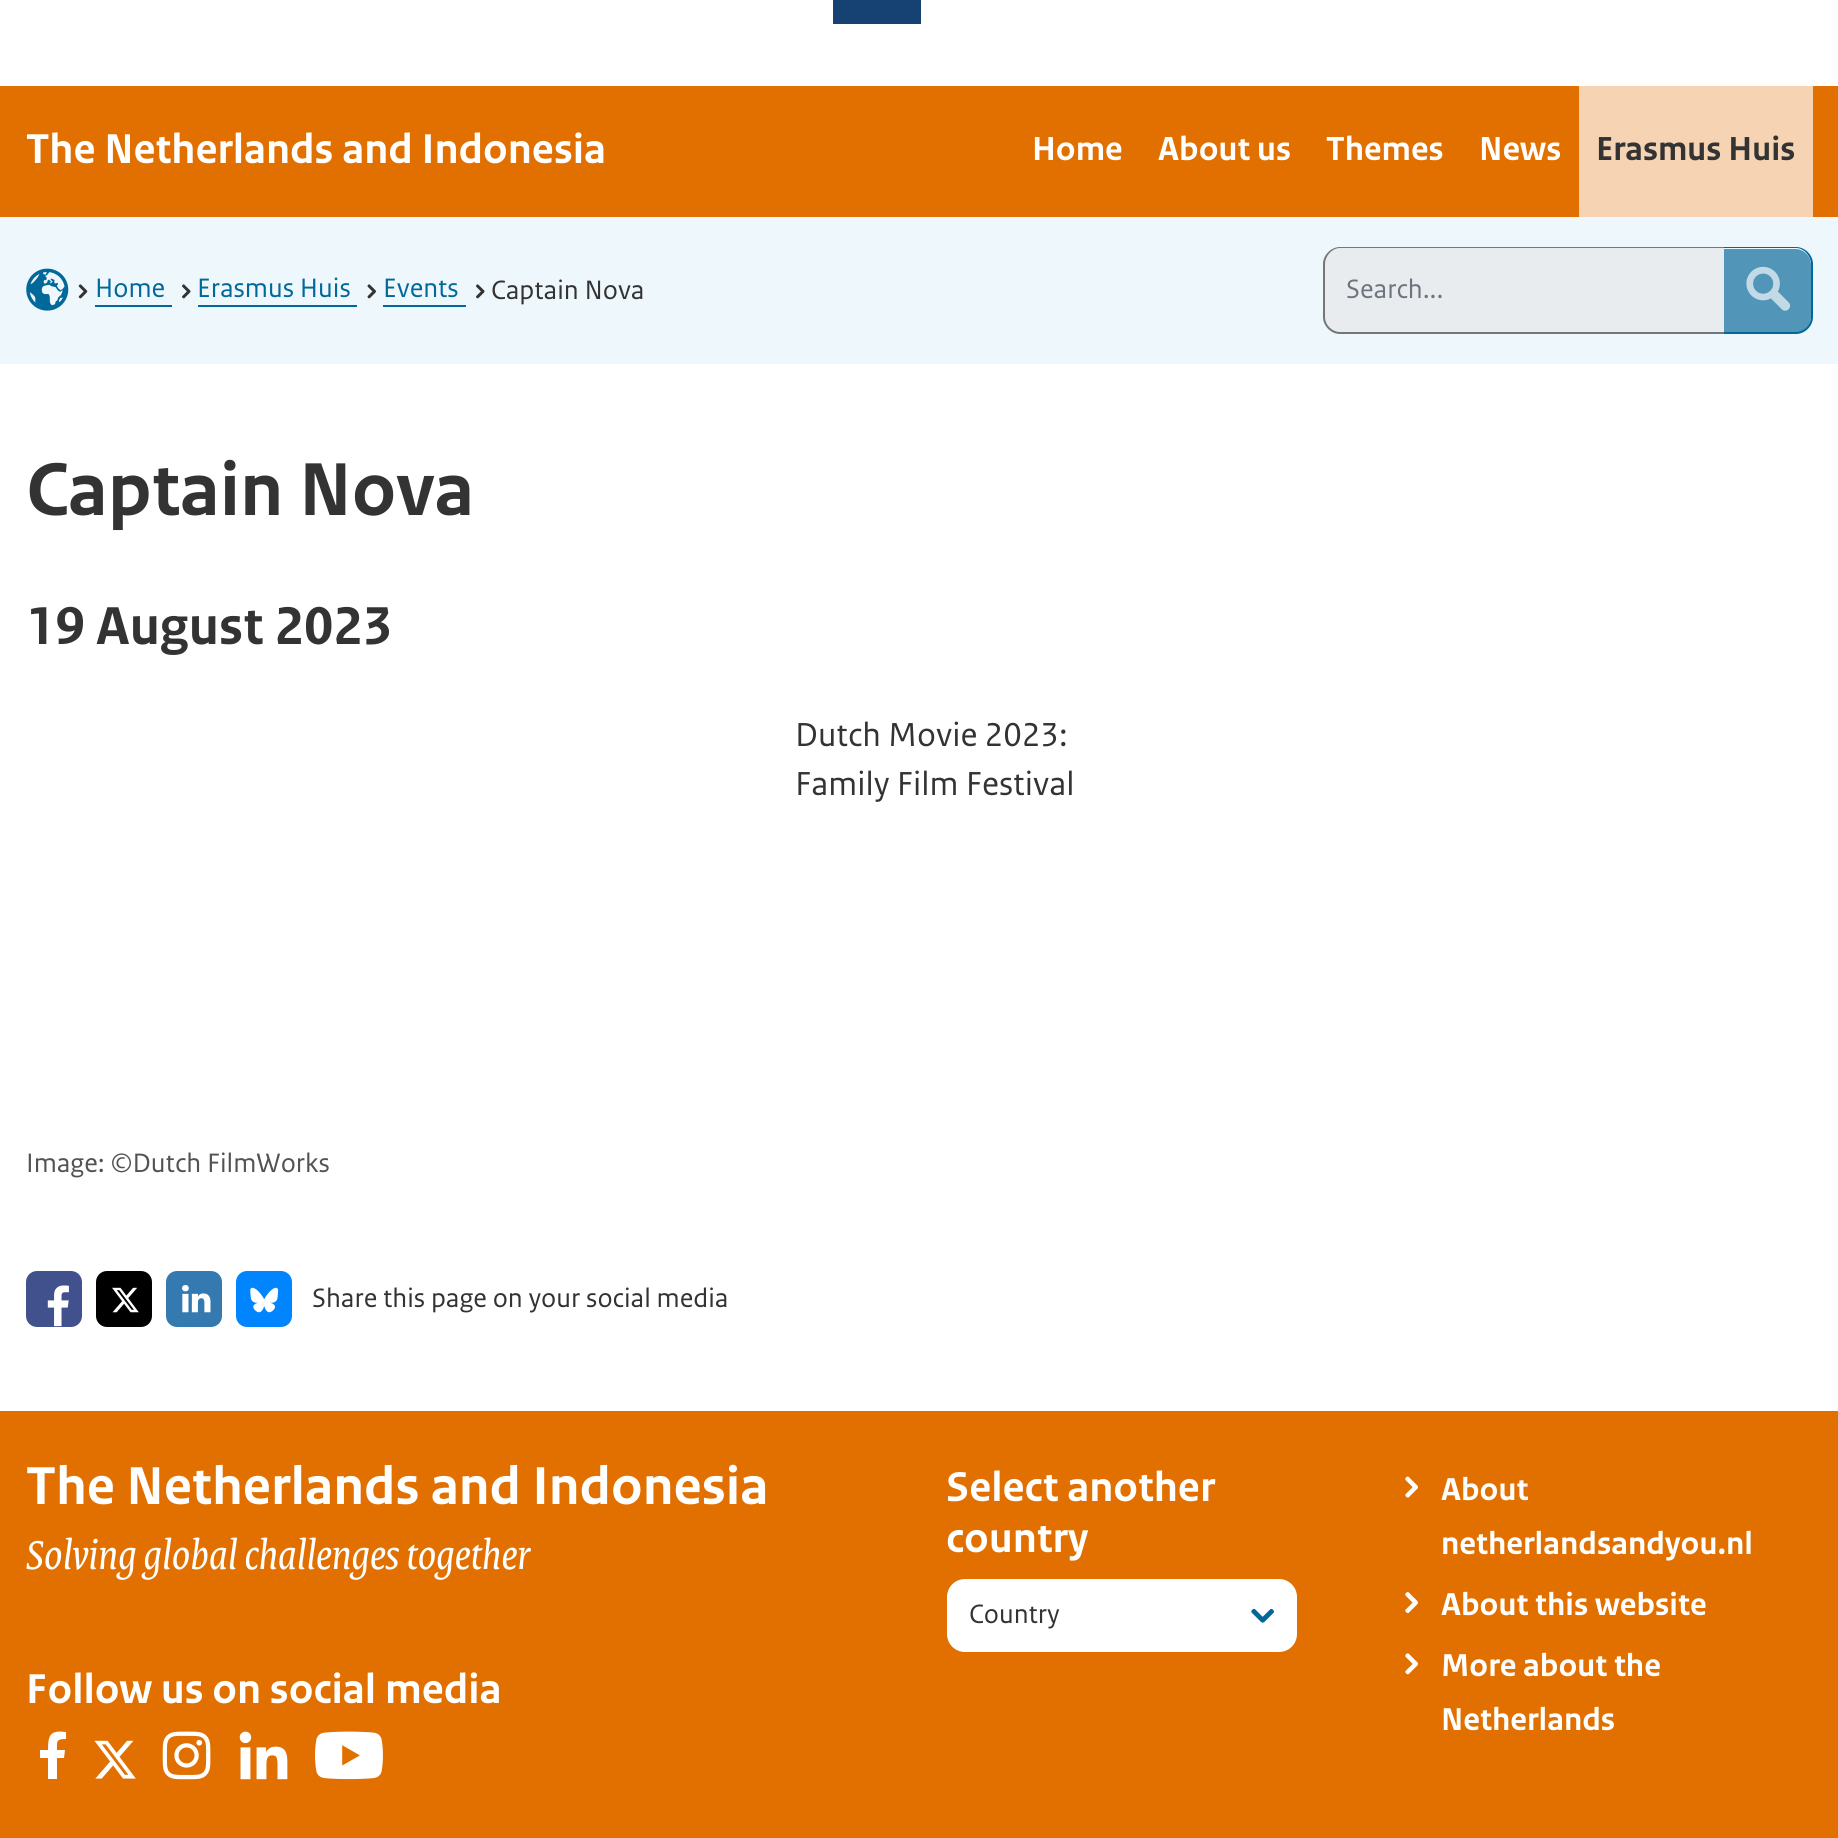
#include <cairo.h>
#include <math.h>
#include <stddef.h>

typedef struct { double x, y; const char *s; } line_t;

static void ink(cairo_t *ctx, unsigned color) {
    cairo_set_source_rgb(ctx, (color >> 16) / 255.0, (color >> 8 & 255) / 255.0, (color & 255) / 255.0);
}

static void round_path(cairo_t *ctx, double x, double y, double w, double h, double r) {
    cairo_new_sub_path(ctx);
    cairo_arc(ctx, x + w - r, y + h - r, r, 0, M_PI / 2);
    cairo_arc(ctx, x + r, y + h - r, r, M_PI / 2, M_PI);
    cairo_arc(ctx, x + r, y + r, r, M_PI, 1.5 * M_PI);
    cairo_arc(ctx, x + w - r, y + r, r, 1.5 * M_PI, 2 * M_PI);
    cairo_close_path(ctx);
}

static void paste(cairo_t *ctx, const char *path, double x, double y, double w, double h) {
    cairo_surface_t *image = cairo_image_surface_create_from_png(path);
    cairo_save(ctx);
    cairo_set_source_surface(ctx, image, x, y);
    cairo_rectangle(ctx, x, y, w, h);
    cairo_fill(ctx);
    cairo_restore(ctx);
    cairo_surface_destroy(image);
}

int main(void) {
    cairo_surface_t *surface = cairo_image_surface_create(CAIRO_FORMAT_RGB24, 1838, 1838);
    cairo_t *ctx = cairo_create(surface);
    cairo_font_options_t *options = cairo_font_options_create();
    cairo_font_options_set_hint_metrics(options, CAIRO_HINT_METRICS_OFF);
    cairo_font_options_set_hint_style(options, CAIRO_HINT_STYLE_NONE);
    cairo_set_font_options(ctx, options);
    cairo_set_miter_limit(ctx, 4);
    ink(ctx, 0xFFFFFF);
    cairo_paint(ctx);
    ink(ctx, 0x154273);
    cairo_rectangle(ctx, 833, 0, 88, 24);
    cairo_fill(ctx);
    ink(ctx, 0xE17000);
    cairo_rectangle(ctx, 0, 86, 1838, 131);
    cairo_fill(ctx);
    cairo_select_font_face(ctx, "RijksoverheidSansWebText", CAIRO_FONT_SLANT_NORMAL, CAIRO_FONT_WEIGHT_BOLD);
    cairo_set_font_size(ctx, 43.75);
    ink(ctx, 0xFFFFFF);
    cairo_move_to(ctx, 26, 163);
    cairo_show_text(ctx, "The Netherlands and Indonesia");
    cairo_set_font_size(ctx, 35);
    {
        static const line_t items[] = {
            {1032, 160, "Home"},
            {1158, 160, "About us"},
            {1326, 160, "Themes"},
            {1479, 160, "News"},
        };
        for (size_t i = 0; i < sizeof items / sizeof *items; i++) {
            cairo_move_to(ctx, items[i].x, items[i].y);
            cairo_show_text(ctx, items[i].s);
        }
    }
    ink(ctx, 0xF6D4B3);
    cairo_rectangle(ctx, 1579, 86, 234, 131);
    cairo_fill(ctx);
    ink(ctx, 0x333333);
    cairo_move_to(ctx, 1596, 160);
    cairo_show_text(ctx, "Erasmus Huis");
    ink(ctx, 0xEEF7FB);
    cairo_rectangle(ctx, 0, 217, 1838, 147);
    cairo_fill(ctx);
    paste(ctx, "media/1.png", 26, 268, 43, 43);
    paste(ctx, "media/2.png", 78, 284, 10, 15);
    cairo_select_font_face(ctx, "RijksoverheidSansWebText", CAIRO_FONT_SLANT_NORMAL, CAIRO_FONT_WEIGHT_NORMAL);
    cairo_set_font_size(ctx, 28);
    ink(ctx, 0x01689B);
    cairo_move_to(ctx, 95, 297);
    cairo_show_text(ctx, "Home");
    cairo_rectangle(ctx, 95, 305, 77, 2);
    cairo_fill(ctx);
    paste(ctx, "media/3.png", 182, 284, 9, 15);
    cairo_move_to(ctx, 197, 297);
    cairo_show_text(ctx, "Erasmus Huis");
    cairo_rectangle(ctx, 198, 305, 159, 2);
    cairo_fill(ctx);
    paste(ctx, "media/4.png", 367, 284, 9, 15);
    cairo_move_to(ctx, 383, 297);
    cairo_show_text(ctx, "Events");
    cairo_rectangle(ctx, 383, 305, 83, 2);
    cairo_fill(ctx);
    paste(ctx, "media/3.png", 476, 284, 9, 15);
    ink(ctx, 0x333333);
    cairo_move_to(ctx, 491, 299);
    cairo_show_text(ctx, "Captain Nova");
    ink(ctx, 0xE9ECEF);
    cairo_new_path(ctx);
    cairo_move_to(ctx, 1341, 247);
    cairo_line_to(ctx, 1724, 247);
    cairo_line_to(ctx, 1724, 334);
    cairo_line_to(ctx, 1341, 334);
    cairo_curve_to(ctx, 1331, 334, 1323, 326, 1323, 316);
    cairo_line_to(ctx, 1323, 265);
    cairo_curve_to(ctx, 1323, 255, 1331, 247, 1341, 247);
    cairo_close_path(ctx);
    cairo_fill(ctx);
    cairo_set_source_rgba(ctx, 0, 0, 0, 0.5);
    cairo_set_fill_rule(ctx, CAIRO_FILL_RULE_EVEN_ODD);
    cairo_new_path(ctx);
    cairo_move_to(ctx, 1340, 247);
    cairo_line_to(ctx, 1724, 247);
    cairo_line_to(ctx, 1724, 334);
    cairo_line_to(ctx, 1340, 334);
    cairo_curve_to(ctx, 1331, 334, 1323, 326, 1323, 317);
    cairo_line_to(ctx, 1323, 264);
    cairo_curve_to(ctx, 1323, 255, 1331, 247, 1340, 247);
    cairo_close_path(ctx);
    cairo_move_to(ctx, 1340, 248);
    cairo_line_to(ctx, 1724, 248);
    cairo_line_to(ctx, 1724, 332);
    cairo_line_to(ctx, 1340, 332);
    cairo_curve_to(ctx, 1332, 332, 1325, 325, 1325, 317);
    cairo_line_to(ctx, 1325, 264);
    cairo_curve_to(ctx, 1325, 256, 1332, 248, 1340, 248);
    cairo_close_path(ctx);
    cairo_fill(ctx);
    ink(ctx, 0x6C757D);
    cairo_move_to(ctx, 1346, 298);
    cairo_show_text(ctx, "Search...");
    ink(ctx, 0xE9ECEF);
    cairo_new_path(ctx);
    cairo_move_to(ctx, 1724, 249);
    cairo_line_to(ctx, 1795, 249);
    cairo_curve_to(ctx, 1804, 249, 1811, 256, 1811, 265);
    cairo_line_to(ctx, 1811, 317);
    cairo_curve_to(ctx, 1811, 326, 1804, 333, 1795, 333);
    cairo_line_to(ctx, 1724, 333);
    cairo_close_path(ctx);
    cairo_fill(ctx);
    ink(ctx, 0x01689B);
    cairo_new_path(ctx);
    cairo_move_to(ctx, 1724, 247);
    cairo_line_to(ctx, 1796, 247);
    cairo_curve_to(ctx, 1805, 247, 1813, 255, 1813, 264);
    cairo_line_to(ctx, 1813, 317);
    cairo_curve_to(ctx, 1813, 326, 1805, 334, 1796, 334);
    cairo_line_to(ctx, 1724, 334);
    cairo_close_path(ctx);
    cairo_move_to(ctx, 1724, 248);
    cairo_line_to(ctx, 1796, 248);
    cairo_curve_to(ctx, 1804, 248, 1811, 256, 1811, 264);
    cairo_line_to(ctx, 1811, 317);
    cairo_curve_to(ctx, 1811, 325, 1804, 332, 1796, 332);
    cairo_line_to(ctx, 1724, 332);
    cairo_close_path(ctx);
    cairo_fill(ctx);
    cairo_set_source_rgba(ctx, 0.004, 0.408, 0.608, 0.65);
    cairo_new_path(ctx);
    cairo_move_to(ctx, 1724, 249);
    cairo_line_to(ctx, 1795, 249);
    cairo_curve_to(ctx, 1804, 249, 1811, 256, 1811, 265);
    cairo_line_to(ctx, 1811, 317);
    cairo_curve_to(ctx, 1811, 326, 1804, 333, 1795, 333);
    cairo_line_to(ctx, 1724, 333);
    cairo_close_path(ctx);
    cairo_fill(ctx);
    paste(ctx, "media/5.png", 1746, 266, 45, 45);
    cairo_select_font_face(ctx, "RijksoverheidSansWebText", CAIRO_FONT_SLANT_NORMAL, CAIRO_FONT_WEIGHT_BOLD);
    cairo_set_font_size(ctx, 78.75);
    ink(ctx, 0x333333);
    cairo_move_to(ctx, 26, 515);
    cairo_show_text(ctx, "Captain Nova");
    cairo_set_font_size(ctx, 56);
    cairo_move_to(ctx, 26, 644);
    cairo_show_text(ctx, "19 August 2023");
    cairo_select_font_face(ctx, "RijksoverheidSansWebText", CAIRO_FONT_SLANT_NORMAL, CAIRO_FONT_WEIGHT_NORMAL);
    cairo_set_font_size(ctx, 35);
    cairo_move_to(ctx, 795, 746);
    cairo_show_text(ctx, "Dutch Movie 2023:");
    cairo_move_to(ctx, 795, 795);
    cairo_show_text(ctx, "Family Film Festival");
    cairo_set_font_size(ctx, 28);
    ink(ctx, 0x535353);
    cairo_move_to(ctx, 26, 1172);
    cairo_show_text(ctx, "Image: ©Dutch FilmWorks");
    ink(ctx, 0x40518E);
    round_path(ctx, 26, 1271, 56, 56, 11);
    cairo_fill(ctx);
    paste(ctx, "media/6.png", 47, 1285, 22, 42);
    ink(ctx, 0x000000);
    round_path(ctx, 96, 1271, 56, 56, 11);
    cairo_fill(ctx);
    paste(ctx, "media/7.png", 112, 1287, 27, 26);
    ink(ctx, 0x347AB1);
    round_path(ctx, 166, 1271, 56, 56, 11);
    cairo_fill(ctx);
    paste(ctx, "media/8.png", 182, 1285, 29, 28);
    ink(ctx, 0x0085FF);
    round_path(ctx, 236, 1271, 56, 56, 11);
    cairo_fill(ctx);
    paste(ctx, "media/9.png", 250, 1287, 29, 26);
    ink(ctx, 0x333333);
    cairo_move_to(ctx, 312, 1307);
    cairo_show_text(ctx, "Share this page on your social media");
    ink(ctx, 0xE17000);
    cairo_rectangle(ctx, 0, 1411, 1838, 427);
    cairo_fill(ctx);
    cairo_select_font_face(ctx, "RijksoverheidSansWebText", CAIRO_FONT_SLANT_NORMAL, CAIRO_FONT_WEIGHT_BOLD);
    cairo_set_font_size(ctx, 56);
    ink(ctx, 0xFFFFFF);
    cairo_move_to(ctx, 26, 1504);
    cairo_show_text(ctx, "The Netherlands and Indonesia");
    cairo_select_font_face(ctx, "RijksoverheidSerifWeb", CAIRO_FONT_SLANT_ITALIC, CAIRO_FONT_WEIGHT_NORMAL);
    cairo_set_font_size(ctx, 43.75);
    cairo_move_to(ctx, 26, 1569);
    cairo_show_text(ctx, "Solving global challenges together");
    cairo_select_font_face(ctx, "RijksoverheidSansWebText", CAIRO_FONT_SLANT_NORMAL, CAIRO_FONT_WEIGHT_BOLD);
    cairo_move_to(ctx, 26, 1703);
    cairo_show_text(ctx, "Follow us on social media");
    cairo_set_fill_rule(ctx, CAIRO_FILL_RULE_WINDING);
    cairo_new_path(ctx);
    cairo_move_to(ctx, 64, 1758);
    cairo_line_to(ctx, 65, 1750);
    cairo_line_to(ctx, 57, 1750);
    cairo_curve_to(ctx, 57, 1741, 56, 1739, 66, 1739);
    cairo_line_to(ctx, 66, 1732);
    cairo_curve_to(ctx, 50, 1730, 48, 1735, 48, 1750);
    cairo_line_to(ctx, 40, 1750);
    cairo_line_to(ctx, 40, 1758);
    cairo_line_to(ctx, 48, 1758);
    cairo_line_to(ctx, 48, 1779);
    cairo_line_to(ctx, 57, 1779);
    cairo_line_to(ctx, 57, 1758);
    cairo_close_path(ctx);
    cairo_fill(ctx);
    paste(ctx, "media/10.png", 94, 1740, 42, 39);
    paste(ctx, "media/11.png", 162, 1731, 49, 49);
    paste(ctx, "media/12.png", 239, 1731, 49, 49);
    paste(ctx, "media/13.png", 315, 1731, 68, 49);
    cairo_move_to(ctx, 946, 1501);
    cairo_show_text(ctx, "Select another");
    cairo_move_to(ctx, 946, 1552);
    cairo_show_text(ctx, "country");
    round_path(ctx, 948, 1580, 348, 71, 17);
    cairo_fill_preserve(ctx);
    cairo_stroke(ctx);
    cairo_select_font_face(ctx, "RijksoverheidSansWebText", CAIRO_FONT_SLANT_NORMAL, CAIRO_FONT_WEIGHT_NORMAL);
    cairo_set_font_size(ctx, 28);
    ink(ctx, 0x333333);
    cairo_move_to(ctx, 969, 1623);
    cairo_show_text(ctx, "Country");
    paste(ctx, "media/14.png", 1251, 1608, 23, 15);
    paste(ctx, "media/15.png", 1405, 1476, 13, 22);
    cairo_select_font_face(ctx, "RijksoverheidSansWebText", CAIRO_FONT_SLANT_NORMAL, CAIRO_FONT_WEIGHT_BOLD);
    cairo_set_font_size(ctx, 33.25);
    ink(ctx, 0xFFFFFF);
    cairo_move_to(ctx, 1441, 1500);
    cairo_show_text(ctx, "About");
    cairo_move_to(ctx, 1441, 1554);
    cairo_show_text(ctx, "netherlandsandyou.nl");
    paste(ctx, "media/16.png", 1405, 1592, 13, 21);
    cairo_move_to(ctx, 1441, 1615);
    cairo_show_text(ctx, "About this website");
    paste(ctx, "media/17.png", 1405, 1653, 13, 22);
    cairo_move_to(ctx, 1441, 1676);
    cairo_show_text(ctx, "More about the");
    cairo_move_to(ctx, 1441, 1730);
    cairo_show_text(ctx, "Netherlands");
    cairo_surface_write_to_png(surface, "image.png");
    cairo_font_options_destroy(options);
    cairo_destroy(ctx);
    cairo_surface_destroy(surface);
    return 0;
}
